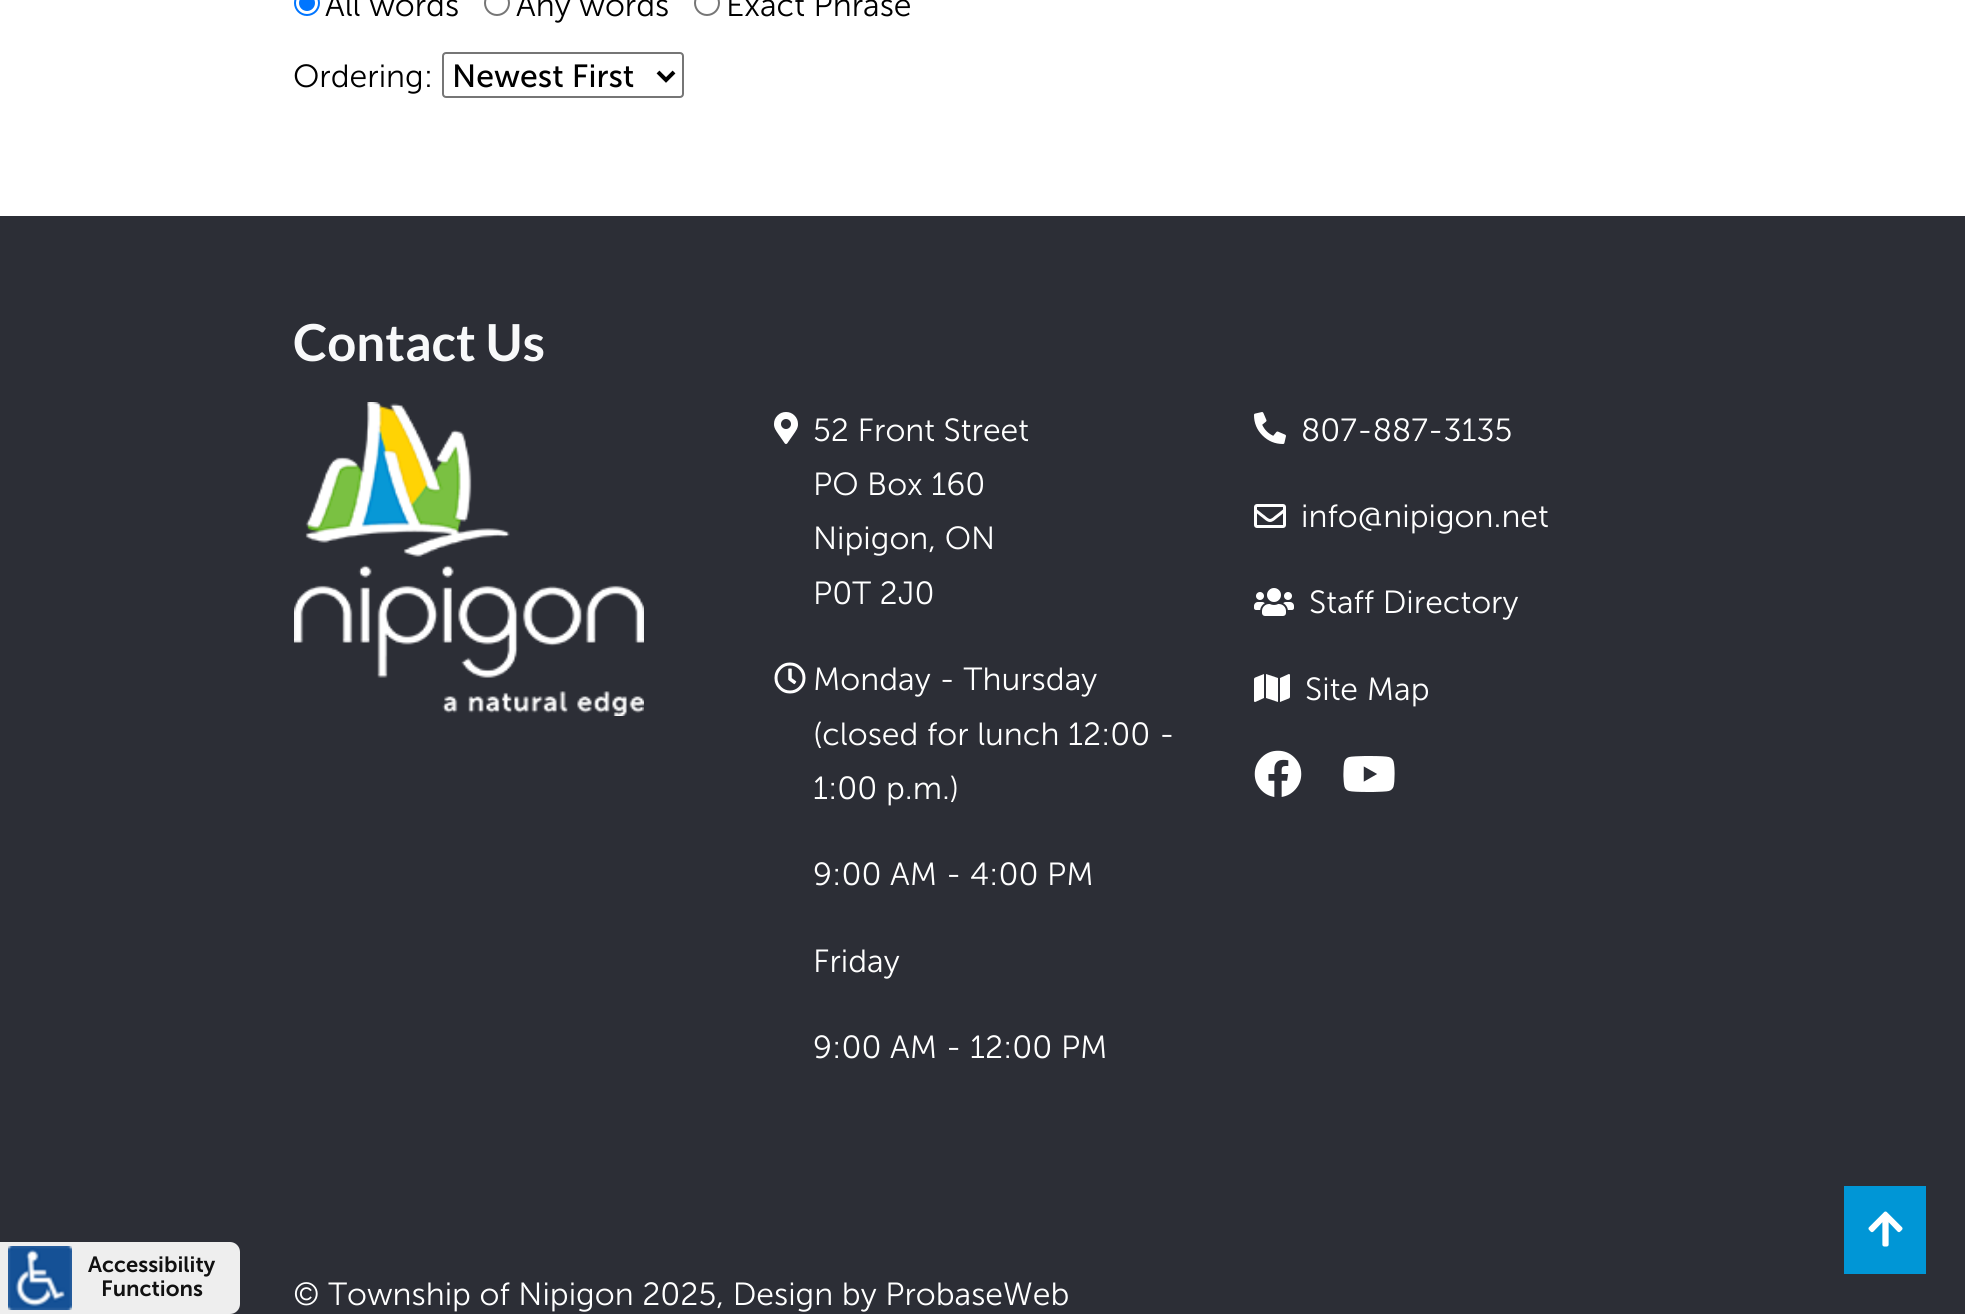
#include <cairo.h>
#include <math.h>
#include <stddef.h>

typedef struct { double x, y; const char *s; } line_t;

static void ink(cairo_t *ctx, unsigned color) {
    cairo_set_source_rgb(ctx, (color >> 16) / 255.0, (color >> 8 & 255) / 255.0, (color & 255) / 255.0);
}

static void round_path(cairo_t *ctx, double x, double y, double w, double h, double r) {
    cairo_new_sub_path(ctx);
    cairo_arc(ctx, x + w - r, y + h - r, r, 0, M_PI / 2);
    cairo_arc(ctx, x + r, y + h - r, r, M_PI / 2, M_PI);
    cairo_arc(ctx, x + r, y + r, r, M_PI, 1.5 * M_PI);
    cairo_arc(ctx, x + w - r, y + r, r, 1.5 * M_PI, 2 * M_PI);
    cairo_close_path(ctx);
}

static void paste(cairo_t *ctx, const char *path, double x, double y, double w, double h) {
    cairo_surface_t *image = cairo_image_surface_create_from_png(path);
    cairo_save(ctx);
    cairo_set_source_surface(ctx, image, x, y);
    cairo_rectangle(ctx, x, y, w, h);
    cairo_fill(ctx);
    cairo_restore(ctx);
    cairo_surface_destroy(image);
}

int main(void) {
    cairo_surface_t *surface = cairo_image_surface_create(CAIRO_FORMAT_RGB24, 1965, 1314);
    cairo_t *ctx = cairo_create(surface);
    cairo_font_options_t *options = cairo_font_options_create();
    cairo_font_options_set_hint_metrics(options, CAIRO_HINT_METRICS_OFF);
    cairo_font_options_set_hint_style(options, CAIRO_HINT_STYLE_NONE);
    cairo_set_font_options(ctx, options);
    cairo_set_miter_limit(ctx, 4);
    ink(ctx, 0xFFFFFF);
    cairo_paint(ctx);
    ink(ctx, 0x2C2E36);
    cairo_rectangle(ctx, 0, 216, 1965, 1034);
    cairo_fill(ctx);
    cairo_rectangle(ctx, 230, 1250, 1735, 64);
    cairo_fill(ctx);
    ink(ctx, 0xEEEEEE);
    cairo_new_path(ctx);
    cairo_move_to(ctx, 0, 1242);
    cairo_line_to(ctx, 230, 1242);
    cairo_curve_to(ctx, 235.5, 1242, 240, 1246.5, 240, 1252);
    cairo_line_to(ctx, 240, 1304);
    cairo_curve_to(ctx, 240, 1309.5, 235.5, 1314, 230, 1314);
    cairo_line_to(ctx, 0, 1314);
    cairo_close_path(ctx);
    cairo_fill(ctx);
    paste(ctx, "media/1.png", 8, 1246, 64, 64);
    cairo_select_font_face(ctx, "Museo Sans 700 SemiBold", CAIRO_FONT_SLANT_NORMAL, CAIRO_FONT_WEIGHT_NORMAL);
    cairo_set_font_size(ctx, 22);
    ink(ctx, 0x111111);
    cairo_move_to(ctx, 88, 1272);
    cairo_show_text(ctx, "Accessibility");
    cairo_move_to(ctx, 101, 1296);
    cairo_show_text(ctx, "Functions");
    cairo_new_path(ctx);
    cairo_arc(ctx, 307, 3, 12, 0, 2 * M_PI);
    ink(ctx, 0x0075FF);
    cairo_stroke(ctx);
    cairo_arc(ctx, 307, 3, 8, 0, 2 * M_PI);
    cairo_fill(ctx);
    cairo_select_font_face(ctx, "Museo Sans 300 Light", CAIRO_FONT_SLANT_NORMAL, CAIRO_FONT_WEIGHT_NORMAL);
    cairo_set_font_size(ctx, 32);
    ink(ctx, 0x000000);
    cairo_move_to(ctx, 325, 16);
    cairo_show_text(ctx, "All words");
    cairo_new_path(ctx);
    cairo_arc(ctx, 497, 3, 12, 0, 2 * M_PI);
    ink(ctx, 0x767676);
    cairo_stroke(ctx);
    ink(ctx, 0x000000);
    cairo_move_to(ctx, 516, 16);
    cairo_show_text(ctx, "Any words");
    cairo_new_path(ctx);
    cairo_arc(ctx, 707, 3, 12, 0, 2 * M_PI);
    ink(ctx, 0x767676);
    cairo_stroke(ctx);
    ink(ctx, 0x000000);
    cairo_move_to(ctx, 726, 16);
    cairo_show_text(ctx, "Exact Phrase");
    cairo_move_to(ctx, 293, 87);
    cairo_show_text(ctx, "Ordering:");
    round_path(ctx, 443, 53, 240, 44, 3);
    ink(ctx, 0x767676);
    cairo_stroke(ctx);
    cairo_new_path(ctx);
    cairo_move_to(ctx, 658, 72);
    cairo_line_to(ctx, 666, 80);
    cairo_line_to(ctx, 674, 72);
    ink(ctx, 0x000000);
    cairo_set_line_width(ctx, 4);
    cairo_stroke(ctx);
    cairo_select_font_face(ctx, "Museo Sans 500", CAIRO_FONT_SLANT_NORMAL, CAIRO_FONT_WEIGHT_NORMAL);
    cairo_move_to(ctx, 452, 87);
    cairo_show_text(ctx, "Newest First");
    cairo_select_font_face(ctx, "Lato", CAIRO_FONT_SLANT_NORMAL, CAIRO_FONT_WEIGHT_BOLD);
    cairo_set_font_size(ctx, 51);
    ink(ctx, 0xF8F9FA);
    cairo_move_to(ctx, 293, 361);
    cairo_show_text(ctx, "Contact Us");
    paste(ctx, "media/2.png", 294, 402, 350, 314);
    paste(ctx, "media/3.png", 774, 412, 24, 32);
    cairo_select_font_face(ctx, "Museo Sans 300 Light", CAIRO_FONT_SLANT_NORMAL, CAIRO_FONT_WEIGHT_NORMAL);
    cairo_set_font_size(ctx, 32);
    ink(ctx, 0xFFFFFF);
    {
        static const line_t items[] = {
            {813, 441, "52 Front Street"},
            {813, 495, "PO Box 160"},
            {813, 549, "Nipigon, ON"},
            {813, 604, "P0T 2J0"},
        };
        for (size_t i = 0; i < sizeof items / sizeof *items; i++) {
            cairo_move_to(ctx, items[i].x, items[i].y);
            cairo_show_text(ctx, items[i].s);
        }
    }
    paste(ctx, "media/4.png", 774, 662, 32, 32);
    {
        static const line_t items[] = {
            {813, 690, "Monday - Thursday"},
            {813, 745, "(closed for lunch 12:00 -"},
            {813, 799, "1:00 p.m.)"},
            {813, 885, "9:00 AM - 4:00 PM"},
            {813, 972, "Friday"},
            {813, 1058, "9:00 AM - 12:00 PM"},
        };
        for (size_t i = 0; i < sizeof items / sizeof *items; i++) {
            cairo_move_to(ctx, items[i].x, items[i].y);
            cairo_show_text(ctx, items[i].s);
        }
    }
    paste(ctx, "media/5.png", 1254, 412, 32, 32);
    cairo_move_to(ctx, 1301, 441);
    cairo_show_text(ctx, "807-887-3135");
    paste(ctx, "media/6.png", 1254, 504, 32, 24);
    cairo_move_to(ctx, 1301, 527);
    cairo_show_text(ctx, "info@nipigon.net");
    paste(ctx, "media/7.png", 1254, 588, 40, 28);
    cairo_move_to(ctx, 1309, 613);
    cairo_show_text(ctx, "Staff Directory");
    paste(ctx, "media/8.png", 1254, 674, 36, 28);
    cairo_move_to(ctx, 1305, 700);
    cairo_show_text(ctx, "Site Map");
    paste(ctx, "media/9.png", 1254, 750, 48, 47);
    paste(ctx, "media/10.png", 1343, 756, 52, 36);
    cairo_move_to(ctx, 293, 1305);
    cairo_show_text(ctx, "© Township of Nipigon 2025, Design by ProbaseWeb");
    ink(ctx, 0x0096D6);
    cairo_rectangle(ctx, 1844, 1186, 82, 88);
    cairo_fill(ctx);
    paste(ctx, "media/11.png", 1868, 1211, 35, 36);
    cairo_surface_write_to_png(surface, "image.png");
    cairo_font_options_destroy(options);
    cairo_destroy(ctx);
    cairo_surface_destroy(surface);
    return 0;
}
